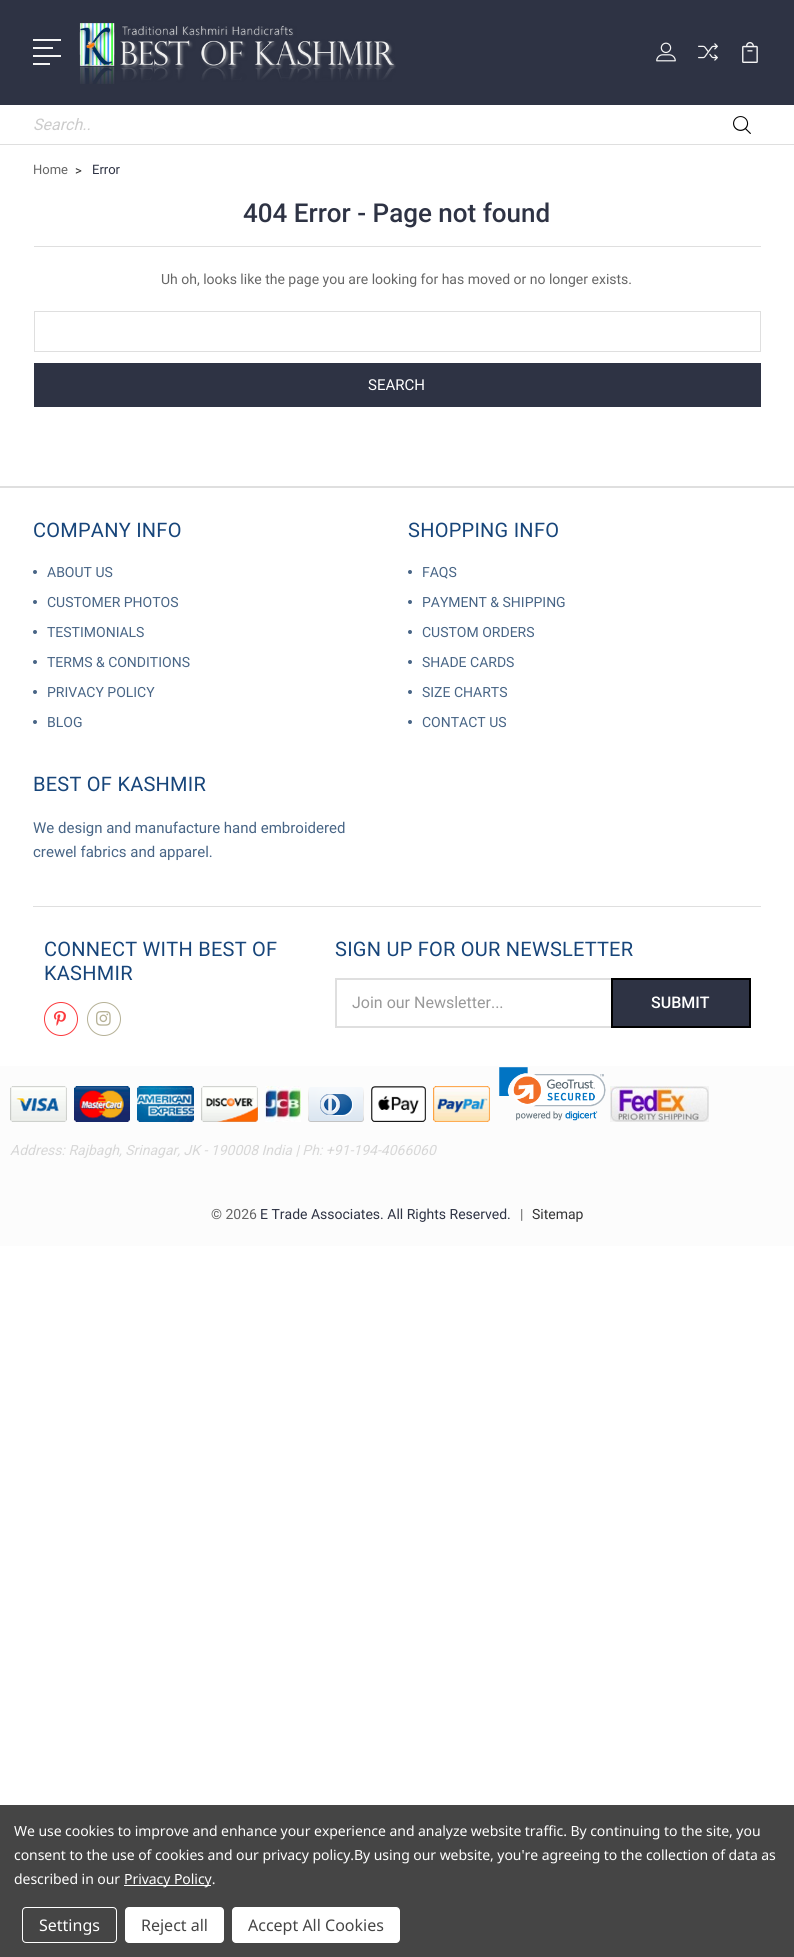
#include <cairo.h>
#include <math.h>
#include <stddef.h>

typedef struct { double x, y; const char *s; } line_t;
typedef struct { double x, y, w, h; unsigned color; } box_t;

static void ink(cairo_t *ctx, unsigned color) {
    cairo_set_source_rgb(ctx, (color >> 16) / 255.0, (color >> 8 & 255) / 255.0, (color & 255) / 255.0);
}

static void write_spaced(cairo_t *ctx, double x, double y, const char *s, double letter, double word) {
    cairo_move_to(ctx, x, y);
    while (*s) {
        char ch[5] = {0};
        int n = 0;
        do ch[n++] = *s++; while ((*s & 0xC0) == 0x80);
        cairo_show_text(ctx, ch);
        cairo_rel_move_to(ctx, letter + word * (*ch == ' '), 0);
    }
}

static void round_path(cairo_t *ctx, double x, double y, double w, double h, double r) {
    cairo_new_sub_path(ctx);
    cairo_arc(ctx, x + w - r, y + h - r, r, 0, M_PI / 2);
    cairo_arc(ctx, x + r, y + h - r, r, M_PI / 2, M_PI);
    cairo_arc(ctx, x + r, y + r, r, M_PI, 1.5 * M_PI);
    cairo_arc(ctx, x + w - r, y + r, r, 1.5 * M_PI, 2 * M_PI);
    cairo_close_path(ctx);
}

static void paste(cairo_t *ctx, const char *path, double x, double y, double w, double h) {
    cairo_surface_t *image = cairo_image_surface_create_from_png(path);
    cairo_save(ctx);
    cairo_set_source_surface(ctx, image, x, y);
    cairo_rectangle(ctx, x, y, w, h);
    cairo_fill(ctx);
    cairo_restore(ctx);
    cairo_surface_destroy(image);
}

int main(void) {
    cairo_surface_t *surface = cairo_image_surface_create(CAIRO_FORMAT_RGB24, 794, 1957);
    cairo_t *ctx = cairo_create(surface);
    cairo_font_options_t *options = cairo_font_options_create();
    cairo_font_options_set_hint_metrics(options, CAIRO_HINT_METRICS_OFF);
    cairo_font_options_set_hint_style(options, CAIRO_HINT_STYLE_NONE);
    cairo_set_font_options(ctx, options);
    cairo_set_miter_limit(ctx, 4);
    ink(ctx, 0xFFFFFF);
    cairo_paint(ctx);
    {
        static const box_t items[] = {
            {0, 0, 794, 105, 0x2E3344},
            {33, 39, 28, 2, 0xF5F5F5},
            {33, 47, 20, 2, 0xF5F5F5},
            {33, 55, 28, 2, 0xF5F5F5},
            {33, 63, 17, 2, 0xF5F5F5},
        };
        for (size_t i = 0; i < sizeof items / sizeof *items; i++) {
            ink(ctx, items[i].color);
            cairo_rectangle(ctx, items[i].x, items[i].y, items[i].w, items[i].h);
            cairo_fill(ctx);
        }
    }
    paste(ctx, "media/1.png", 79, 23, 317, 61);
    paste(ctx, "media/2.png", 656, 42, 20, 20);
    paste(ctx, "media/3.png", 698, 43, 20, 18);
    paste(ctx, "media/4.png", 742, 42, 16, 21);
    ink(ctx, 0xDFDFDF);
    cairo_rectangle(ctx, 0, 144, 794, 1);
    cairo_fill(ctx);
    cairo_select_font_face(ctx, "Roboto", CAIRO_FONT_SLANT_ITALIC, CAIRO_FONT_WEIGHT_NORMAL);
    cairo_set_font_size(ctx, 16);
    ink(ctx, 0xCCCCCC);
    cairo_move_to(ctx, 33, 130);
    cairo_show_text(ctx, "Search..");
    paste(ctx, "media/5.png", 733, 116, 18, 18);
    cairo_select_font_face(ctx, "Roboto", CAIRO_FONT_SLANT_NORMAL, CAIRO_FONT_WEIGHT_NORMAL);
    cairo_set_font_size(ctx, 13);
    ink(ctx, 0x666666);
    cairo_move_to(ctx, 33, 174);
    cairo_show_text(ctx, "Home");
    ink(ctx, 0x333333);
    cairo_move_to(ctx, 75, 175);
    cairo_show_text(ctx, ">");
    ink(ctx, 0x2E3344);
    cairo_move_to(ctx, 92, 174);
    cairo_show_text(ctx, "Error");
    ink(ctx, 0xDFDFDF);
    cairo_rectangle(ctx, 34, 246, 727, 1);
    cairo_fill(ctx);
    cairo_select_font_face(ctx, "Roboto Medium", CAIRO_FONT_SLANT_NORMAL, CAIRO_FONT_WEIGHT_NORMAL);
    cairo_set_font_size(ctx, 26);
    ink(ctx, 0x2E3344);
    cairo_move_to(ctx, 243, 222);
    cairo_show_text(ctx, "404 Error - Page not found");
    cairo_select_font_face(ctx, "Roboto", CAIRO_FONT_SLANT_NORMAL, CAIRO_FONT_WEIGHT_NORMAL);
    cairo_set_font_size(ctx, 14);
    ink(ctx, 0x666666);
    cairo_move_to(ctx, 161, 284);
    cairo_show_text(ctx, "Uh oh, looks like the page you are looking for has moved or no longer exists.");
    cairo_rectangle(ctx, 34.5, 311.5, 726, 40);
    ink(ctx, 0xDFDFDF);
    cairo_set_line_width(ctx, 1);
    cairo_stroke(ctx);
    ink(ctx, 0x2E3344);
    cairo_rectangle(ctx, 34, 363, 727, 44);
    cairo_fill(ctx);
    cairo_set_font_size(ctx, 15);
    ink(ctx, 0xFFFFFF);
    cairo_move_to(ctx, 368, 390);
    cairo_show_text(ctx, "SEARCH");
    ink(ctx, 0xDFDFDF);
    cairo_rectangle(ctx, 0, 486, 794, 2);
    cairo_fill(ctx);
    cairo_set_font_size(ctx, 20);
    ink(ctx, 0x17457A);
    write_spaced(ctx, 33, 537, "COMPANY INFO", 0.25, 0);
    ink(ctx, 0x486586);
    cairo_new_path(ctx);
    cairo_arc(ctx, 35, 572, 2, 0, 2 * M_PI);
    cairo_fill(ctx);
    cairo_set_font_size(ctx, 14);
    cairo_move_to(ctx, 47, 577);
    cairo_show_text(ctx, "ABOUT US");
    cairo_new_path(ctx);
    cairo_arc(ctx, 35, 602, 2, 0, 2 * M_PI);
    cairo_fill(ctx);
    cairo_move_to(ctx, 47, 607);
    cairo_show_text(ctx, "CUSTOMER PHOTOS");
    cairo_new_path(ctx);
    cairo_arc(ctx, 35, 632, 2, 0, 2 * M_PI);
    cairo_fill(ctx);
    cairo_move_to(ctx, 47, 637);
    cairo_show_text(ctx, "TESTIMONIALS");
    cairo_new_path(ctx);
    cairo_arc(ctx, 35, 662, 2, 0, 2 * M_PI);
    cairo_fill(ctx);
    cairo_move_to(ctx, 47, 667);
    cairo_show_text(ctx, "TERMS & CONDITIONS");
    cairo_new_path(ctx);
    cairo_arc(ctx, 35, 692, 2, 0, 2 * M_PI);
    cairo_fill(ctx);
    cairo_move_to(ctx, 47, 697);
    cairo_show_text(ctx, "PRIVACY POLICY");
    cairo_new_path(ctx);
    cairo_arc(ctx, 35, 722, 2, 0, 2 * M_PI);
    cairo_fill(ctx);
    cairo_move_to(ctx, 47, 727);
    cairo_show_text(ctx, "BLOG");
    cairo_set_font_size(ctx, 20);
    ink(ctx, 0x17457A);
    write_spaced(ctx, 408, 537, "SHOPPING INFO", 0.25, 0);
    ink(ctx, 0x486586);
    cairo_new_path(ctx);
    cairo_arc(ctx, 410, 572, 2, 0, 2 * M_PI);
    cairo_fill(ctx);
    cairo_set_font_size(ctx, 14);
    cairo_move_to(ctx, 422, 577);
    cairo_show_text(ctx, "FAQS");
    cairo_new_path(ctx);
    cairo_arc(ctx, 410, 602, 2, 0, 2 * M_PI);
    cairo_fill(ctx);
    cairo_move_to(ctx, 422, 607);
    cairo_show_text(ctx, "PAYMENT & SHIPPING");
    cairo_new_path(ctx);
    cairo_arc(ctx, 410, 632, 2, 0, 2 * M_PI);
    cairo_fill(ctx);
    cairo_move_to(ctx, 422, 637);
    cairo_show_text(ctx, "CUSTOM ORDERS");
    cairo_new_path(ctx);
    cairo_arc(ctx, 410, 662, 2, 0, 2 * M_PI);
    cairo_fill(ctx);
    cairo_move_to(ctx, 422, 667);
    cairo_show_text(ctx, "SHADE CARDS");
    cairo_new_path(ctx);
    cairo_arc(ctx, 410, 692, 2, 0, 2 * M_PI);
    cairo_fill(ctx);
    cairo_move_to(ctx, 422, 697);
    cairo_show_text(ctx, "SIZE CHARTS");
    cairo_new_path(ctx);
    cairo_arc(ctx, 410, 722, 2, 0, 2 * M_PI);
    cairo_fill(ctx);
    cairo_move_to(ctx, 422, 727);
    cairo_show_text(ctx, "CONTACT US");
    cairo_set_font_size(ctx, 20);
    ink(ctx, 0x17457A);
    write_spaced(ctx, 33, 791, "BEST OF KASHMIR", 0.25, 0);
    cairo_set_font_size(ctx, 15);
    ink(ctx, 0x486586);
    cairo_move_to(ctx, 33, 833);
    cairo_show_text(ctx, "We design and manufacture hand embroidered");
    cairo_move_to(ctx, 33, 857);
    cairo_show_text(ctx, "crewel fabrics and apparel.");
    ink(ctx, 0xDFDFDF);
    cairo_rectangle(ctx, 33, 906, 728, 1);
    cairo_fill(ctx);
    cairo_set_font_size(ctx, 20);
    ink(ctx, 0x17457A);
    write_spaced(ctx, 44, 956, "CONNECT WITH BEST OF", 0.25, 0);
    write_spaced(ctx, 44, 980, "KASHMIR", 0.25, 0);
    cairo_new_path(ctx);
    cairo_arc(ctx, 61, 1019, 16.5, 0, 2 * M_PI);
    ink(ctx, 0xFC393D);
    cairo_stroke(ctx);
    paste(ctx, "media/6.png", 53, 1011, 13, 15);
    cairo_arc(ctx, 104, 1019, 16.5, 0, 2 * M_PI);
    ink(ctx, 0xB5B196);
    cairo_stroke(ctx);
    paste(ctx, "media/7.png", 96, 1011, 15, 15);
    ink(ctx, 0x17457A);
    write_spaced(ctx, 335, 956, "SIGN UP FOR OUR NEWSLETTER", 0.25, 0);
    {
        static const box_t items[] = {
            {335, 978, 276, 2, 0xDFDFDF},
            {335, 1026, 276, 2, 0xDFDFDF},
            {335, 978, 2, 50, 0xDFDFDF},
        };
        for (size_t i = 0; i < sizeof items / sizeof *items; i++) {
            ink(ctx, items[i].color);
            cairo_rectangle(ctx, items[i].x, items[i].y, items[i].w, items[i].h);
            cairo_fill(ctx);
        }
    }
    cairo_set_font_size(ctx, 16);
    ink(ctx, 0x999999);
    cairo_move_to(ctx, 352, 1008);
    cairo_show_text(ctx, "Join our Newsletter...");
    ink(ctx, 0x2E3344);
    cairo_rectangle(ctx, 612, 979, 138, 48);
    cairo_fill_preserve(ctx);
    ink(ctx, 0x000000);
    cairo_set_line_width(ctx, 2);
    cairo_stroke(ctx);
    cairo_select_font_face(ctx, "Roboto Medium", CAIRO_FONT_SLANT_NORMAL, CAIRO_FONT_WEIGHT_NORMAL);
    ink(ctx, 0xFFFFFF);
    cairo_move_to(ctx, 651, 1008);
    cairo_show_text(ctx, "SUBMIT");
    ink(ctx, 0xFCFCFC);
    cairo_rectangle(ctx, 0, 1066, 794, 180);
    cairo_fill(ctx);
    paste(ctx, "media/8.png", 10, 1086, 57, 36);
    paste(ctx, "media/9.png", 74, 1086, 56, 36);
    paste(ctx, "media/10.png", 137, 1086, 57, 36);
    paste(ctx, "media/11.png", 201, 1086, 57, 36);
    paste(ctx, "media/12.png", 265, 1086, 36, 36);
    paste(ctx, "media/13.png", 308, 1087, 56, 35);
    paste(ctx, "media/14.png", 371, 1086, 55, 36);
    paste(ctx, "media/15.png", 433, 1086, 57, 36);
    paste(ctx, "media/16.png", 499, 1067, 107, 54);
    paste(ctx, "media/17.png", 610, 1086, 99, 36);
    cairo_select_font_face(ctx, "Roboto", CAIRO_FONT_SLANT_ITALIC, CAIRO_FONT_WEIGHT_NORMAL);
    cairo_set_font_size(ctx, 14);
    ink(ctx, 0xD7D7D7);
    cairo_move_to(ctx, 10, 1155);
    cairo_show_text(ctx, "Address: Rajbagh, Srinagar, JK - 190008 India | Ph: +91-194-4066060");
    cairo_select_font_face(ctx, "Roboto", CAIRO_FONT_SLANT_NORMAL, CAIRO_FONT_WEIGHT_NORMAL);
    ink(ctx, 0x666666);
    cairo_move_to(ctx, 211, 1219);
    cairo_show_text(ctx, "© 2026");
    ink(ctx, 0x2E3344);
    cairo_move_to(ctx, 260, 1219);
    cairo_show_text(ctx, "E Trade Associates. All Rights Reserved.");
    ink(ctx, 0x666666);
    cairo_move_to(ctx, 520, 1219);
    cairo_show_text(ctx, "|");
    ink(ctx, 0x333333);
    cairo_move_to(ctx, 532, 1219);
    cairo_show_text(ctx, "Sitemap");
    ink(ctx, 0x454545);
    cairo_rectangle(ctx, 0, 1805, 794, 152);
    cairo_fill(ctx);
    cairo_select_font_face(ctx, "Noto Sans", CAIRO_FONT_SLANT_NORMAL, CAIRO_FONT_WEIGHT_NORMAL);
    ink(ctx, 0xFFFFFF);
    {
        static const line_t items[] = {
            {14, 1836, "We use cookies to improve and enhance your experience and analyze website traffic. By continuing to the site, you"},
            {14, 1860, "consent to the use of cookies and our privacy policy.By using our website, you're agreeing to the collection of data as"},
            {14, 1884, "described in our"},
        };
        for (size_t i = 0; i < sizeof items / sizeof *items; i++) {
            write_spaced(ctx, items[i].x, items[i].y, items[i].s, -0.05, 0);
        }
    }
    cairo_rectangle(ctx, 124, 1885, 87, 1);
    cairo_fill(ctx);
    write_spaced(ctx, 124, 1884, "Privacy Policy.", -0.05, 0);
    round_path(ctx, 22.5, 1907.5, 94, 35, 3.5);
    cairo_set_line_width(ctx, 1);
    cairo_stroke(ctx);
    cairo_set_font_size(ctx, 16);
    cairo_move_to(ctx, 39, 1931);
    cairo_show_text(ctx, "Settings");
    round_path(ctx, 125, 1907, 99, 36, 4);
    cairo_fill(ctx);
    ink(ctx, 0x454545);
    cairo_move_to(ctx, 141, 1931);
    cairo_show_text(ctx, "Reject all");
    ink(ctx, 0xFFFFFF);
    round_path(ctx, 232, 1907, 168, 36, 4);
    cairo_fill(ctx);
    ink(ctx, 0x454545);
    cairo_move_to(ctx, 248, 1931);
    cairo_show_text(ctx, "Accept All Cookies");
    cairo_surface_write_to_png(surface, "image.png");
    cairo_font_options_destroy(options);
    cairo_destroy(ctx);
    cairo_surface_destroy(surface);
    return 0;
}
